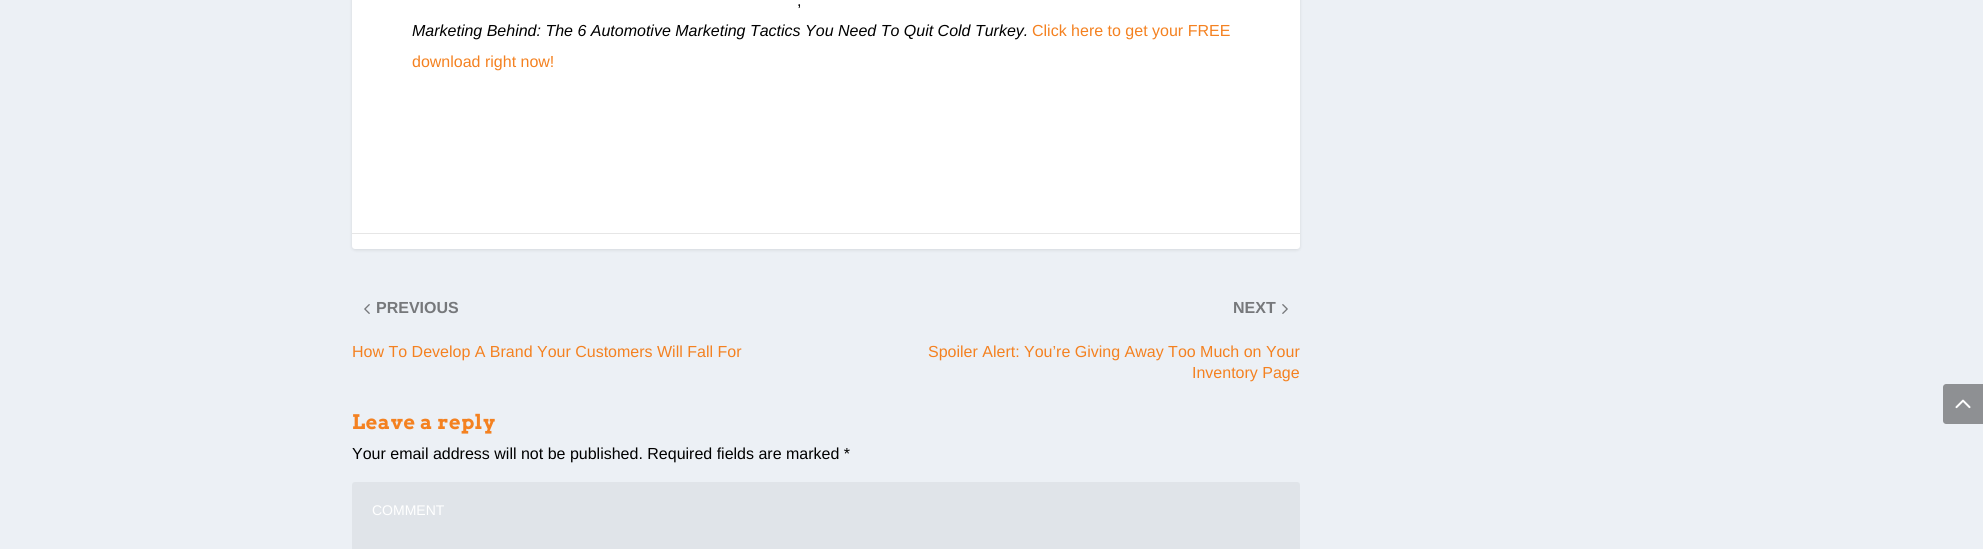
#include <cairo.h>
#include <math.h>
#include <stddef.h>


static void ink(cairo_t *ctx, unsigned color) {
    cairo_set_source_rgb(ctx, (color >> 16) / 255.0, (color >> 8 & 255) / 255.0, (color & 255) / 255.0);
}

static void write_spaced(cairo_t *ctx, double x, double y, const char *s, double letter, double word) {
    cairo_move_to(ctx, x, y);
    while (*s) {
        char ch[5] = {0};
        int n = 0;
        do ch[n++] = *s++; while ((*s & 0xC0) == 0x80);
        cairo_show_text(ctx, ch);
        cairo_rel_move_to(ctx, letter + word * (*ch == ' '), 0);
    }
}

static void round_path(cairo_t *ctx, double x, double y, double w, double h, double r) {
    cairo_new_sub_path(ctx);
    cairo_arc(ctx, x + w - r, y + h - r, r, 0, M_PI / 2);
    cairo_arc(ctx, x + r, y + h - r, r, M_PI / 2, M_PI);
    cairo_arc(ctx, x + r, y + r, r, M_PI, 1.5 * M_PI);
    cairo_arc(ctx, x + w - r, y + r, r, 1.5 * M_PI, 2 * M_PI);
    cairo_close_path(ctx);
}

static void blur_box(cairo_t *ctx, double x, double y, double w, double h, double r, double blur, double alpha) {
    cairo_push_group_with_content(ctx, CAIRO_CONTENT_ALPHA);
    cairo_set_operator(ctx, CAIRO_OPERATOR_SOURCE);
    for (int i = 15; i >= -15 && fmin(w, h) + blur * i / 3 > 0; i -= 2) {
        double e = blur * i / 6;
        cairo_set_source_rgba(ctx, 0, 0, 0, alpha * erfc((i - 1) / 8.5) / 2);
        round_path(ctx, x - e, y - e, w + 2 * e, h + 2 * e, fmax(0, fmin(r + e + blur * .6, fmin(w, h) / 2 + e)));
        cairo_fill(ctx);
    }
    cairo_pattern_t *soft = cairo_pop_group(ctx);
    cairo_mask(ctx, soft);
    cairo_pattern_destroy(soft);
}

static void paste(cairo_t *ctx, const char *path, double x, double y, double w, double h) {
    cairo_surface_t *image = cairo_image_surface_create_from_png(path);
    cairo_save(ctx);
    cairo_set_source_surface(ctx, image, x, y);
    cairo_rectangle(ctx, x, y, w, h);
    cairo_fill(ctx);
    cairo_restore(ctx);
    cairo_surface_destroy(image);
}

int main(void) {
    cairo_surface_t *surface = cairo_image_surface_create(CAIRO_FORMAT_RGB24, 1983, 549);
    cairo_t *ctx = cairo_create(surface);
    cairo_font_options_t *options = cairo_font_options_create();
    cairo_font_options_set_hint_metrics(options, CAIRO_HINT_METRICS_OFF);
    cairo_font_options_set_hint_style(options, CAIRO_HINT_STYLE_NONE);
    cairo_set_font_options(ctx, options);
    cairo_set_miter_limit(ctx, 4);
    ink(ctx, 0xECF0F5);
    cairo_paint(ctx);
    ink(ctx, 0x000000);
    blur_box(ctx, 352, -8, 948, 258, 3, 1.5, 0.1);
    ink(ctx, 0xFFFFFF);
    round_path(ctx, 352, -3, 948, 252, 3);
    cairo_fill(ctx);
    cairo_select_font_face(ctx, "Liberation Sans", CAIRO_FONT_SLANT_NORMAL, CAIRO_FONT_WEIGHT_NORMAL);
    cairo_set_font_size(ctx, 16);
    ink(ctx, 0x000000);
    cairo_move_to(ctx, 797, 6);
    cairo_show_text(ctx, ",");
    cairo_select_font_face(ctx, "Liberation Sans", CAIRO_FONT_SLANT_ITALIC, CAIRO_FONT_WEIGHT_NORMAL);
    cairo_move_to(ctx, 412, 36);
    cairo_show_text(ctx, "Marketing Behind: The 6 Automotive Marketing Tactics You Need To Quit Cold Turkey.");
    cairo_select_font_face(ctx, "Liberation Sans", CAIRO_FONT_SLANT_NORMAL, CAIRO_FONT_WEIGHT_NORMAL);
    ink(ctx, 0xF48120);
    cairo_move_to(ctx, 1032, 36);
    cairo_show_text(ctx, "Click here to get your FREE");
    cairo_move_to(ctx, 412, 67);
    cairo_show_text(ctx, "download right now!");
    ink(ctx, 0xE6E6E6);
    cairo_rectangle(ctx, 352, 233, 948, 1);
    cairo_fill(ctx);
    paste(ctx, "media/1.png", 364, 304, 6, 10);
    cairo_select_font_face(ctx, "Liberation Sans", CAIRO_FONT_SLANT_NORMAL, CAIRO_FONT_WEIGHT_BOLD);
    ink(ctx, 0x76787B);
    cairo_move_to(ctx, 376, 313);
    cairo_show_text(ctx, "PREVIOUS");
    cairo_select_font_face(ctx, "Liberation Sans", CAIRO_FONT_SLANT_NORMAL, CAIRO_FONT_WEIGHT_NORMAL);
    ink(ctx, 0xF48120);
    cairo_move_to(ctx, 352, 357);
    cairo_show_text(ctx, "How To Develop A Brand Your Customers Will Fall For");
    cairo_select_font_face(ctx, "Liberation Sans", CAIRO_FONT_SLANT_NORMAL, CAIRO_FONT_WEIGHT_BOLD);
    ink(ctx, 0x76787B);
    cairo_move_to(ctx, 1233, 313);
    cairo_show_text(ctx, "NEXT");
    paste(ctx, "media/2.png", 1282, 304, 6, 10);
    cairo_select_font_face(ctx, "Liberation Sans", CAIRO_FONT_SLANT_NORMAL, CAIRO_FONT_WEIGHT_NORMAL);
    ink(ctx, 0xF48120);
    cairo_move_to(ctx, 928, 357);
    cairo_show_text(ctx, "Spoiler Alert: You’re Giving Away Too Much on Your");
    cairo_move_to(ctx, 1192, 378);
    cairo_show_text(ctx, "Inventory Page");
    cairo_select_font_face(ctx, "Arvo", CAIRO_FONT_SLANT_NORMAL, CAIRO_FONT_WEIGHT_BOLD);
    cairo_set_font_size(ctx, 20);
    write_spaced(ctx, 352, 429, "Leave a reply", 0.5, 0);
    cairo_select_font_face(ctx, "Liberation Sans", CAIRO_FONT_SLANT_NORMAL, CAIRO_FONT_WEIGHT_NORMAL);
    cairo_set_font_size(ctx, 16);
    ink(ctx, 0x000000);
    cairo_move_to(ctx, 352, 459);
    cairo_show_text(ctx, "Your email address will not be published. Required fields are marked *");
    ink(ctx, 0xE0E4E9);
    round_path(ctx, 352, 482, 948, 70, 3);
    cairo_fill(ctx);
    cairo_set_font_size(ctx, 14);
    ink(ctx, 0xFFFFFF);
    cairo_move_to(ctx, 372, 515);
    cairo_show_text(ctx, "COMMENT");
    ink(ctx, 0x8E9093);
    cairo_new_path(ctx);
    cairo_move_to(ctx, 1946, 384);
    cairo_line_to(ctx, 1983, 384);
    cairo_line_to(ctx, 1983, 424);
    cairo_line_to(ctx, 1946, 424);
    cairo_curve_to(ctx, 1944.5, 424, 1943, 422.5, 1943, 421);
    cairo_line_to(ctx, 1943, 387);
    cairo_curve_to(ctx, 1943, 385.5, 1944.5, 384, 1946, 384);
    cairo_close_path(ctx);
    cairo_fill(ctx);
    paste(ctx, "media/3.png", 1955, 399, 16, 10);
    cairo_surface_write_to_png(surface, "image.png");
    cairo_font_options_destroy(options);
    cairo_destroy(ctx);
    cairo_surface_destroy(surface);
    return 0;
}
